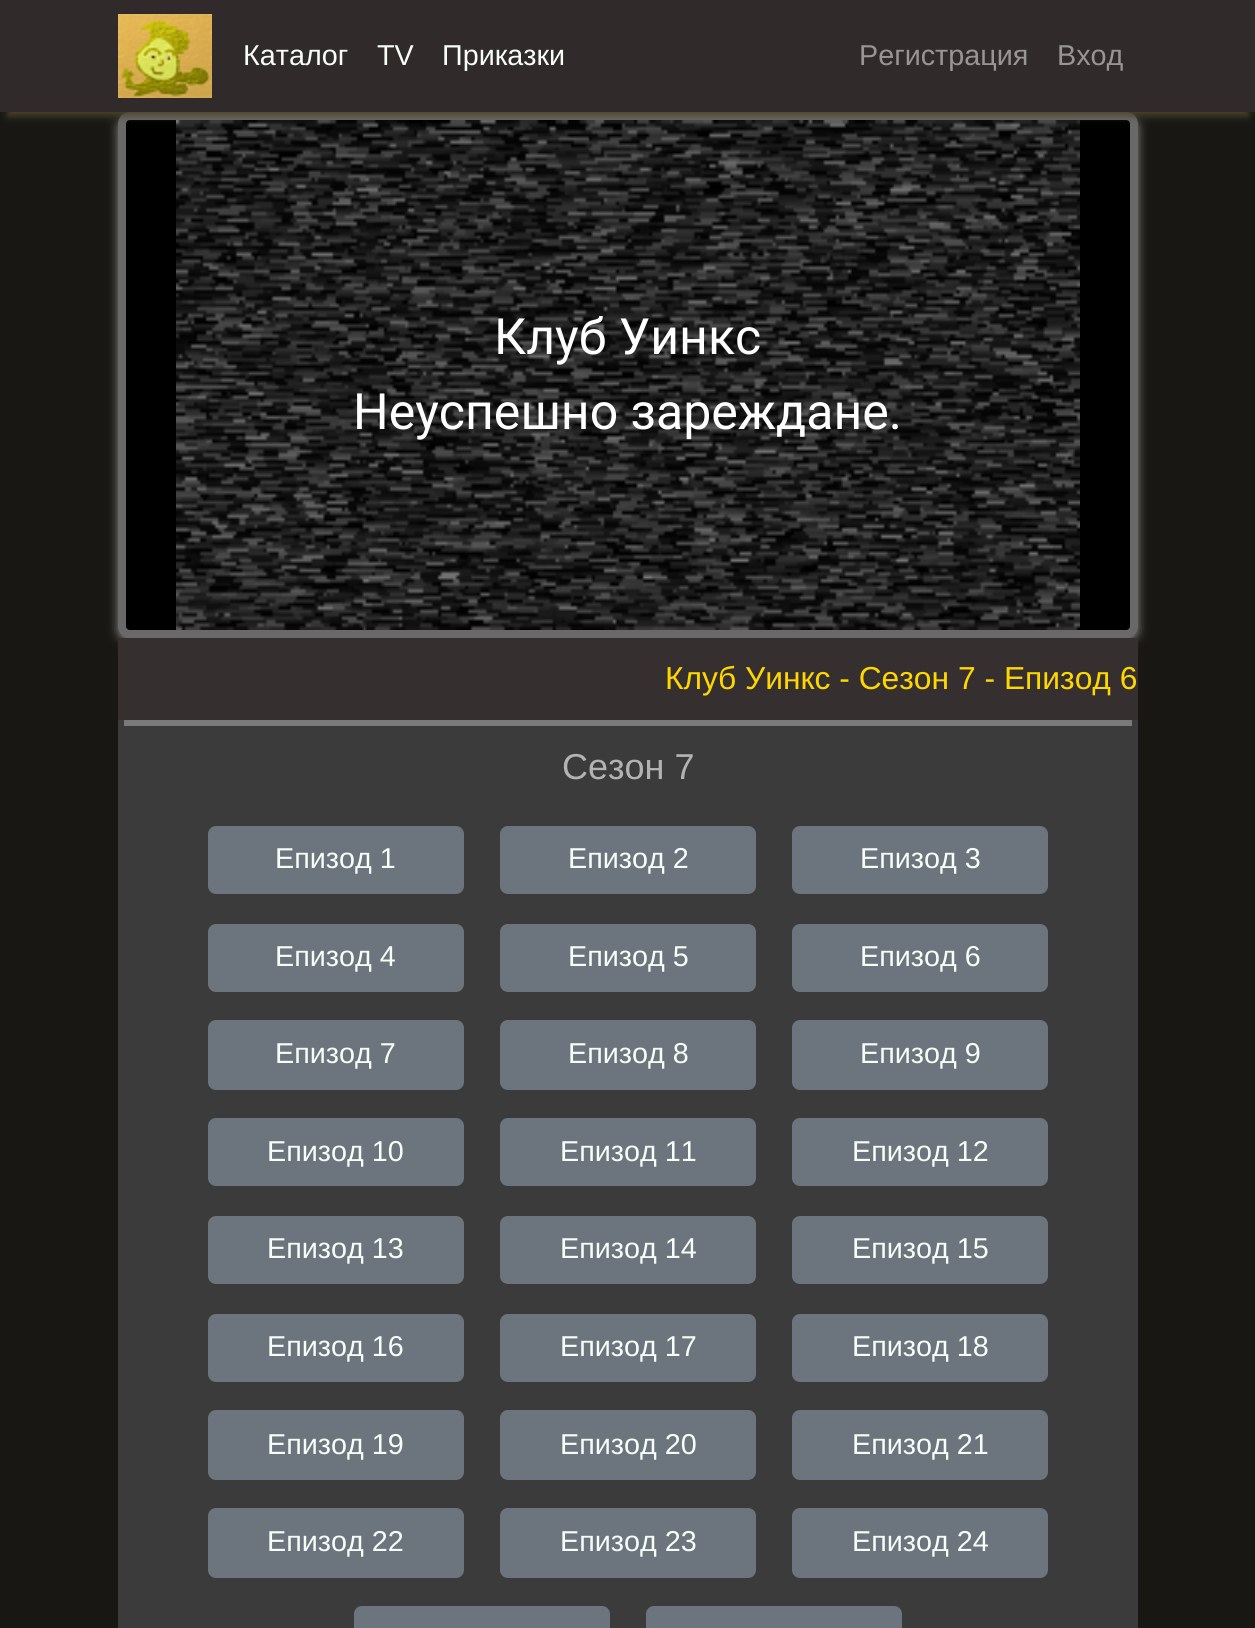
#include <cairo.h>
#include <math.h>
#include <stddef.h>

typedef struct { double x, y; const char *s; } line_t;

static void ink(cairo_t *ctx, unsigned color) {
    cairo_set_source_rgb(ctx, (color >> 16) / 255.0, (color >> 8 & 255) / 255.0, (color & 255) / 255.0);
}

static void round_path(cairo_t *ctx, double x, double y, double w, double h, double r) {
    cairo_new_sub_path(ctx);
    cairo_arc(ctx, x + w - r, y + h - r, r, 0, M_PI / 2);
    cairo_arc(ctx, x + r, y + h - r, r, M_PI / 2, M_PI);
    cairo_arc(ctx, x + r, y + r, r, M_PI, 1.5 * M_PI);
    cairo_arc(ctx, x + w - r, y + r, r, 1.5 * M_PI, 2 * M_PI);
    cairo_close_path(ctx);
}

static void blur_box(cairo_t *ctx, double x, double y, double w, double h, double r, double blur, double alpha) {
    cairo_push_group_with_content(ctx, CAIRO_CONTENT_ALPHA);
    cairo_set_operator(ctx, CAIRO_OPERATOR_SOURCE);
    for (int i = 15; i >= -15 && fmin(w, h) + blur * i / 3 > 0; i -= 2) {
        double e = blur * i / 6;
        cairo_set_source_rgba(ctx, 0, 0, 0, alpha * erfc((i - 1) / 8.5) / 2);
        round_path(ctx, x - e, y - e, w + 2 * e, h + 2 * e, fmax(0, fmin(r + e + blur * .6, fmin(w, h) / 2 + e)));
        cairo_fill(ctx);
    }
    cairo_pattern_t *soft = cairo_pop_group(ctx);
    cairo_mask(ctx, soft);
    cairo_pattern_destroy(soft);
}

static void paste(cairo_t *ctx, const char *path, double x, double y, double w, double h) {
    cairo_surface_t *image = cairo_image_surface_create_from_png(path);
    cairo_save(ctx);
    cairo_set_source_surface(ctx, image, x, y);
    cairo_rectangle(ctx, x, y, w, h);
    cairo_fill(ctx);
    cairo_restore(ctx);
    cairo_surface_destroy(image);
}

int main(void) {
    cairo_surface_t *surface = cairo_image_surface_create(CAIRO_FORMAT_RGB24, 1255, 1628);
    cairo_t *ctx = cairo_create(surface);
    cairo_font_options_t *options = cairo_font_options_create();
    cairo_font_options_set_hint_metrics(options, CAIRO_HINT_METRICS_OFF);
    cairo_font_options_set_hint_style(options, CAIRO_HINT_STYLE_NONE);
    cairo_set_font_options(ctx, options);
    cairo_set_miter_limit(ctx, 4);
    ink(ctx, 0x181714);
    cairo_paint(ctx);
    ink(ctx, 0x888888);
    blur_box(ctx, 118, 116, 1020, 526, 12, 5, 1);
    ink(ctx, 0x000000);
    round_path(ctx, 122, 116, 1012, 518, 8);
    cairo_fill_preserve(ctx);
    ink(ctx, 0x696969);
    cairo_set_line_width(ctx, 8);
    cairo_stroke(ctx);
    ink(ctx, 0x4C442A);
    blur_box(ctx, 8, 20, 1240, 96, 0, 4, 1);
    ink(ctx, 0x312A2A);
    cairo_rectangle(ctx, 0, 0, 1255, 112);
    cairo_fill(ctx);
    paste(ctx, "media/1.png", 118, 14, 94, 84);
    cairo_select_font_face(ctx, "Liberation Sans", CAIRO_FONT_SLANT_NORMAL, CAIRO_FONT_WEIGHT_NORMAL);
    cairo_set_font_size(ctx, 28.75);
    ink(ctx, 0xF7FDF7);
    {
        static const line_t items[] = {
            {243, 65, "Каталог"},
            {377, 65, "TV"},
            {442, 65, "Приказки"},
        };
        for (size_t i = 0; i < sizeof items / sizeof *items; i++) {
            cairo_move_to(ctx, items[i].x, items[i].y);
            cairo_show_text(ctx, items[i].s);
        }
    }
    ink(ctx, 0x989595);
    cairo_move_to(ctx, 859, 65);
    cairo_show_text(ctx, "Регистрация");
    cairo_move_to(ctx, 1057, 65);
    cairo_show_text(ctx, "Вход");
    ink(ctx, 0x777777);
    cairo_rectangle(ctx, 176, 120, 904, 510);
    cairo_fill(ctx);
    paste(ctx, "media/2.png", 176, 120, 904, 510);
    cairo_select_font_face(ctx, "Roboto", CAIRO_FONT_SLANT_NORMAL, CAIRO_FONT_WEIGHT_NORMAL);
    cairo_set_font_size(ctx, 50);
    ink(ctx, 0xFFFFFF);
    cairo_move_to(ctx, 494, 354);
    cairo_show_text(ctx, "Клуб Уинкс");
    cairo_move_to(ctx, 353, 429);
    cairo_show_text(ctx, "Неуспешно зареждане.");
    ink(ctx, 0x362F2F);
    cairo_rectangle(ctx, 118, 638, 1020, 82);
    cairo_fill(ctx);
    cairo_select_font_face(ctx, "Liberation Sans", CAIRO_FONT_SLANT_NORMAL, CAIRO_FONT_WEIGHT_NORMAL);
    cairo_set_font_size(ctx, 31.8);
    ink(ctx, 0xFFD700);
    cairo_move_to(ctx, 665, 689);
    cairo_show_text(ctx, "Клуб Уинкс - Сезон 7 - Епизод 6");
    ink(ctx, 0x3B3B3B);
    cairo_rectangle(ctx, 118, 720, 1020, 908);
    cairo_fill(ctx);
    ink(ctx, 0x7A7A7A);
    cairo_rectangle(ctx, 124, 720, 1008, 6);
    cairo_fill(ctx);
    cairo_set_font_size(ctx, 36);
    ink(ctx, 0xB3B3B3);
    cairo_move_to(ctx, 562, 779);
    cairo_show_text(ctx, "Сезон 7");
    ink(ctx, 0x6C757D);
    round_path(ctx, 209, 827, 254, 66, 7);
    cairo_fill_preserve(ctx);
    cairo_set_line_width(ctx, 2);
    cairo_stroke(ctx);
    cairo_set_font_size(ctx, 28.75);
    ink(ctx, 0xF7FDF7);
    cairo_move_to(ctx, 275, 868);
    cairo_show_text(ctx, "Епизод 1");
    ink(ctx, 0x6C757D);
    round_path(ctx, 501, 827, 254, 66, 7);
    cairo_fill_preserve(ctx);
    cairo_stroke(ctx);
    ink(ctx, 0xF7FDF7);
    cairo_move_to(ctx, 568, 868);
    cairo_show_text(ctx, "Епизод 2");
    ink(ctx, 0x6C757D);
    round_path(ctx, 793, 827, 254, 66, 7);
    cairo_fill_preserve(ctx);
    cairo_stroke(ctx);
    ink(ctx, 0xF7FDF7);
    cairo_move_to(ctx, 860, 868);
    cairo_show_text(ctx, "Епизод 3");
    ink(ctx, 0x6C757D);
    round_path(ctx, 209, 925, 254, 66, 7);
    cairo_fill_preserve(ctx);
    cairo_stroke(ctx);
    ink(ctx, 0xF7FDF7);
    cairo_move_to(ctx, 275, 966);
    cairo_show_text(ctx, "Епизод 4");
    ink(ctx, 0x6C757D);
    round_path(ctx, 501, 925, 254, 66, 7);
    cairo_fill_preserve(ctx);
    cairo_stroke(ctx);
    ink(ctx, 0xF7FDF7);
    cairo_move_to(ctx, 568, 966);
    cairo_show_text(ctx, "Епизод 5");
    ink(ctx, 0x6C757D);
    round_path(ctx, 793, 925, 254, 66, 7);
    cairo_fill_preserve(ctx);
    cairo_stroke(ctx);
    ink(ctx, 0xF7FDF7);
    cairo_move_to(ctx, 860, 966);
    cairo_show_text(ctx, "Епизод 6");
    ink(ctx, 0x6C757D);
    round_path(ctx, 209, 1021, 254, 68, 7);
    cairo_fill_preserve(ctx);
    cairo_stroke(ctx);
    ink(ctx, 0xF7FDF7);
    cairo_move_to(ctx, 275, 1063);
    cairo_show_text(ctx, "Епизод 7");
    ink(ctx, 0x6C757D);
    round_path(ctx, 501, 1021, 254, 68, 7);
    cairo_fill_preserve(ctx);
    cairo_stroke(ctx);
    ink(ctx, 0xF7FDF7);
    cairo_move_to(ctx, 568, 1063);
    cairo_show_text(ctx, "Епизод 8");
    ink(ctx, 0x6C757D);
    round_path(ctx, 793, 1021, 254, 68, 7);
    cairo_fill_preserve(ctx);
    cairo_stroke(ctx);
    ink(ctx, 0xF7FDF7);
    cairo_move_to(ctx, 860, 1063);
    cairo_show_text(ctx, "Епизод 9");
    ink(ctx, 0x6C757D);
    round_path(ctx, 209, 1119, 254, 66, 7);
    cairo_fill_preserve(ctx);
    cairo_stroke(ctx);
    ink(ctx, 0xF7FDF7);
    cairo_move_to(ctx, 267, 1161);
    cairo_show_text(ctx, "Епизод 10");
    ink(ctx, 0x6C757D);
    round_path(ctx, 501, 1119, 254, 66, 7);
    cairo_fill_preserve(ctx);
    cairo_stroke(ctx);
    ink(ctx, 0xF7FDF7);
    cairo_move_to(ctx, 560, 1161);
    cairo_show_text(ctx, "Епизод 11");
    ink(ctx, 0x6C757D);
    round_path(ctx, 793, 1119, 254, 66, 7);
    cairo_fill_preserve(ctx);
    cairo_stroke(ctx);
    ink(ctx, 0xF7FDF7);
    cairo_move_to(ctx, 852, 1161);
    cairo_show_text(ctx, "Епизод 12");
    ink(ctx, 0x6C757D);
    round_path(ctx, 209, 1217, 254, 66, 7);
    cairo_fill_preserve(ctx);
    cairo_stroke(ctx);
    ink(ctx, 0xF7FDF7);
    cairo_move_to(ctx, 267, 1258);
    cairo_show_text(ctx, "Епизод 13");
    ink(ctx, 0x6C757D);
    round_path(ctx, 501, 1217, 254, 66, 7);
    cairo_fill_preserve(ctx);
    cairo_stroke(ctx);
    ink(ctx, 0xF7FDF7);
    cairo_move_to(ctx, 560, 1258);
    cairo_show_text(ctx, "Епизод 14");
    ink(ctx, 0x6C757D);
    round_path(ctx, 793, 1217, 254, 66, 7);
    cairo_fill_preserve(ctx);
    cairo_stroke(ctx);
    ink(ctx, 0xF7FDF7);
    cairo_move_to(ctx, 852, 1258);
    cairo_show_text(ctx, "Епизод 15");
    ink(ctx, 0x6C757D);
    round_path(ctx, 209, 1315, 254, 66, 7);
    cairo_fill_preserve(ctx);
    cairo_stroke(ctx);
    ink(ctx, 0xF7FDF7);
    cairo_move_to(ctx, 267, 1356);
    cairo_show_text(ctx, "Епизод 16");
    ink(ctx, 0x6C757D);
    round_path(ctx, 501, 1315, 254, 66, 7);
    cairo_fill_preserve(ctx);
    cairo_stroke(ctx);
    ink(ctx, 0xF7FDF7);
    cairo_move_to(ctx, 560, 1356);
    cairo_show_text(ctx, "Епизод 17");
    ink(ctx, 0x6C757D);
    round_path(ctx, 793, 1315, 254, 66, 7);
    cairo_fill_preserve(ctx);
    cairo_stroke(ctx);
    ink(ctx, 0xF7FDF7);
    cairo_move_to(ctx, 852, 1356);
    cairo_show_text(ctx, "Епизод 18");
    ink(ctx, 0x6C757D);
    round_path(ctx, 209, 1411, 254, 68, 7);
    cairo_fill_preserve(ctx);
    cairo_stroke(ctx);
    ink(ctx, 0xF7FDF7);
    cairo_move_to(ctx, 267, 1454);
    cairo_show_text(ctx, "Епизод 19");
    ink(ctx, 0x6C757D);
    round_path(ctx, 501, 1411, 254, 68, 7);
    cairo_fill_preserve(ctx);
    cairo_stroke(ctx);
    ink(ctx, 0xF7FDF7);
    cairo_move_to(ctx, 560, 1454);
    cairo_show_text(ctx, "Епизод 20");
    ink(ctx, 0x6C757D);
    round_path(ctx, 793, 1411, 254, 68, 7);
    cairo_fill_preserve(ctx);
    cairo_stroke(ctx);
    ink(ctx, 0xF7FDF7);
    cairo_move_to(ctx, 852, 1454);
    cairo_show_text(ctx, "Епизод 21");
    ink(ctx, 0x6C757D);
    round_path(ctx, 209, 1509, 254, 68, 7);
    cairo_fill_preserve(ctx);
    cairo_stroke(ctx);
    ink(ctx, 0xF7FDF7);
    cairo_move_to(ctx, 267, 1551);
    cairo_show_text(ctx, "Епизод 22");
    ink(ctx, 0x6C757D);
    round_path(ctx, 501, 1509, 254, 68, 7);
    cairo_fill_preserve(ctx);
    cairo_stroke(ctx);
    ink(ctx, 0xF7FDF7);
    cairo_move_to(ctx, 560, 1551);
    cairo_show_text(ctx, "Епизод 23");
    ink(ctx, 0x6C757D);
    round_path(ctx, 793, 1509, 254, 68, 7);
    cairo_fill_preserve(ctx);
    cairo_stroke(ctx);
    ink(ctx, 0xF7FDF7);
    cairo_move_to(ctx, 852, 1551);
    cairo_show_text(ctx, "Епизод 24");
    ink(ctx, 0x6C757D);
    round_path(ctx, 355, 1607, 254, 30, 7);
    cairo_fill_preserve(ctx);
    cairo_stroke(ctx);
    round_path(ctx, 647, 1607, 254, 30, 7);
    cairo_fill_preserve(ctx);
    cairo_stroke(ctx);
    cairo_surface_write_to_png(surface, "image.png");
    cairo_font_options_destroy(options);
    cairo_destroy(ctx);
    cairo_surface_destroy(surface);
    return 0;
}
